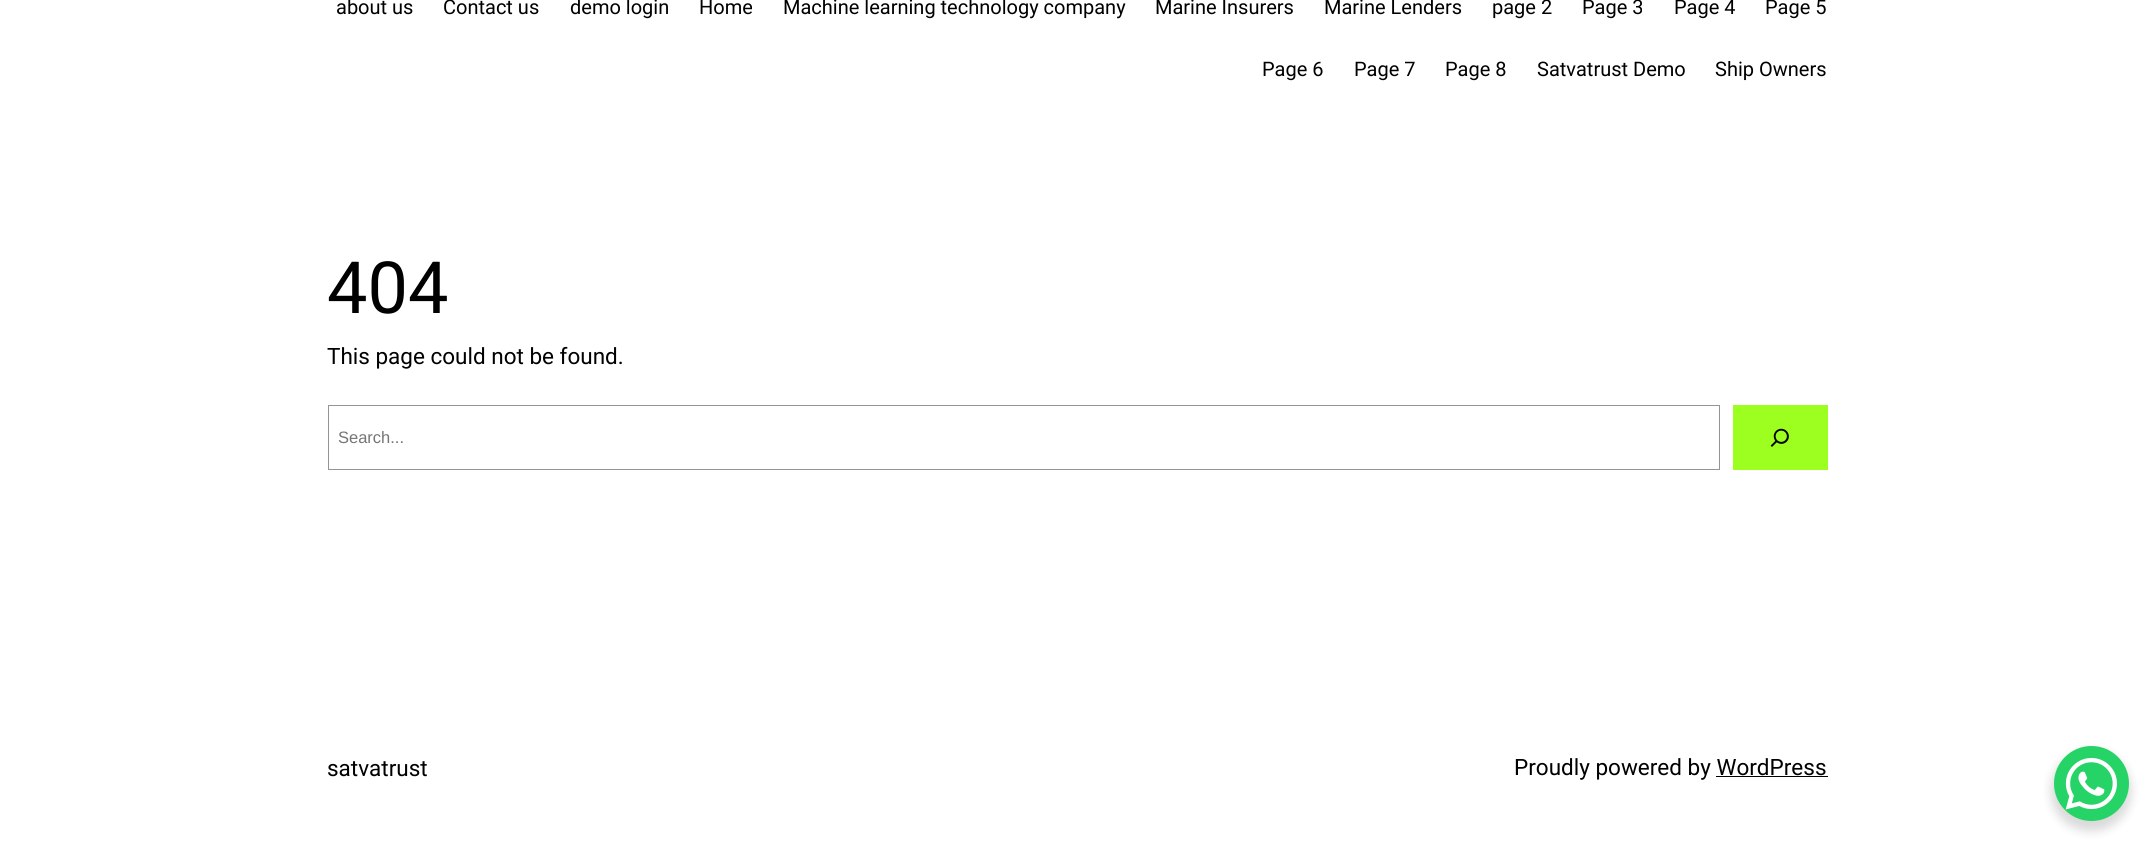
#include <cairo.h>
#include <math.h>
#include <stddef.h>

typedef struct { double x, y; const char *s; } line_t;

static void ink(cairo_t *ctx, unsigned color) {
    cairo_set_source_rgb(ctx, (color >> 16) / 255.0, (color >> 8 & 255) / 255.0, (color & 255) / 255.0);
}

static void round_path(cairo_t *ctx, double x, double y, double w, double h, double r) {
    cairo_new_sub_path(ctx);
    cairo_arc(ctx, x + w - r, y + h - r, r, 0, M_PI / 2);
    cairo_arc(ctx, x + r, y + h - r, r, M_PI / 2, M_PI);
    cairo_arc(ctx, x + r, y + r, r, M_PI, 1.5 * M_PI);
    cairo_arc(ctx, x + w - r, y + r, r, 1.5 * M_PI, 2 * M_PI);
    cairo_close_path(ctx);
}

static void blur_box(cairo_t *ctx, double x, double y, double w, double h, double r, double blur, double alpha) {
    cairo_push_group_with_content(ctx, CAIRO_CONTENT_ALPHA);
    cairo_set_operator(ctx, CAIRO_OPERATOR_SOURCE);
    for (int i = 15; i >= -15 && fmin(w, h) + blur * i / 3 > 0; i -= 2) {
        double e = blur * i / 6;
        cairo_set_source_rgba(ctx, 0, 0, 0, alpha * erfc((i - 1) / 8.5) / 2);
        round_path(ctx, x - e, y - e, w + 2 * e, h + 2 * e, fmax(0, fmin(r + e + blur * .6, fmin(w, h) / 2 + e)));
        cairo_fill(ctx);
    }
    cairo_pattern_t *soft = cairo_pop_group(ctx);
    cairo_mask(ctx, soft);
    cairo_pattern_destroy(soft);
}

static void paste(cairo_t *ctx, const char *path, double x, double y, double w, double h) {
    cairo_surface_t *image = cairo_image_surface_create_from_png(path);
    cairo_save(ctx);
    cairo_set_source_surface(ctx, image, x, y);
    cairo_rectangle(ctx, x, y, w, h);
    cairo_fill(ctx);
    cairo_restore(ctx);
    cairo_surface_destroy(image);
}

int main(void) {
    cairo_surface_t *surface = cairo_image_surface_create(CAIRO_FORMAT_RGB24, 2153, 846);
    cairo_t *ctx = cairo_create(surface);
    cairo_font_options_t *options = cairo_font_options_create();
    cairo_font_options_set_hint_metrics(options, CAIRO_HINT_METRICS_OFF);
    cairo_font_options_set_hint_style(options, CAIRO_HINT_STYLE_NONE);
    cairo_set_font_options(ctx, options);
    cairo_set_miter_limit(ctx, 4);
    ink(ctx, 0xFFFFFF);
    cairo_paint(ctx);
    cairo_select_font_face(ctx, "Roboto", CAIRO_FONT_SLANT_NORMAL, CAIRO_FONT_WEIGHT_NORMAL);
    cairo_set_font_size(ctx, 20);
    ink(ctx, 0x000000);
    {
        static const line_t items[] = {
            {336, 14, "about us"},
            {443, 14, "Contact us"},
            {570, 14, "demo login"},
            {699, 14, "Home"},
            {783, 14, "Machine learning technology company"},
            {1155, 14, "Marine Insurers"},
            {1324, 14, "Marine Lenders"},
            {1492, 14, "page 2"},
            {1582, 14, "Page 3"},
            {1674, 14, "Page 4"},
            {1765, 14, "Page 5"},
            {1262, 76, "Page 6"},
            {1354, 76, "Page 7"},
            {1445, 76, "Page 8"},
            {1537, 76, "Satvatrust Demo"},
            {1715, 76, "Ship Owners"},
        };
        for (size_t i = 0; i < sizeof items / sizeof *items; i++) {
            cairo_move_to(ctx, items[i].x, items[i].y);
            cairo_show_text(ctx, items[i].s);
        }
    }
    cairo_set_font_size(ctx, 72);
    cairo_move_to(ctx, 327, 313);
    cairo_show_text(ctx, "404");
    cairo_set_font_size(ctx, 22.5);
    cairo_move_to(ctx, 327, 364);
    cairo_show_text(ctx, "This page could not be found.");
    cairo_rectangle(ctx, 328.5, 405.5, 1391, 64);
    ink(ctx, 0x949494);
    cairo_set_line_width(ctx, 1);
    cairo_stroke(ctx);
    cairo_select_font_face(ctx, "Liberation Sans", CAIRO_FONT_SLANT_NORMAL, CAIRO_FONT_WEIGHT_NORMAL);
    cairo_set_font_size(ctx, 16.5);
    ink(ctx, 0x757575);
    cairo_move_to(ctx, 338, 443);
    cairo_show_text(ctx, "Search...");
    ink(ctx, 0x9DFF20);
    cairo_rectangle(ctx, 1733, 405, 95, 65);
    cairo_fill(ctx);
    paste(ctx, "media/1.png", 1770, 428, 19, 19);
    cairo_select_font_face(ctx, "Roboto", CAIRO_FONT_SLANT_NORMAL, CAIRO_FONT_WEIGHT_NORMAL);
    cairo_set_font_size(ctx, 22.5);
    ink(ctx, 0x000000);
    cairo_move_to(ctx, 327, 776);
    cairo_show_text(ctx, "satvatrust");
    cairo_move_to(ctx, 1514, 775);
    cairo_show_text(ctx, "Proudly powered by WordPress");
    cairo_rectangle(ctx, 1716, 776, 112, 1);
    cairo_fill(ctx);
    ink(ctx, 0x000000);
    blur_box(ctx, 2051, 751, 80, 80, 40, 5, 0.15);
    ink(ctx, 0x25D366);
    cairo_arc(ctx, 2091.5, 783.5, 37.5, 0, 2 * M_PI);
    cairo_fill(ctx);
    paste(ctx, "media/2.png", 2065, 757, 52, 53);
    cairo_surface_write_to_png(surface, "image.png");
    cairo_font_options_destroy(options);
    cairo_destroy(ctx);
    cairo_surface_destroy(surface);
    return 0;
}
